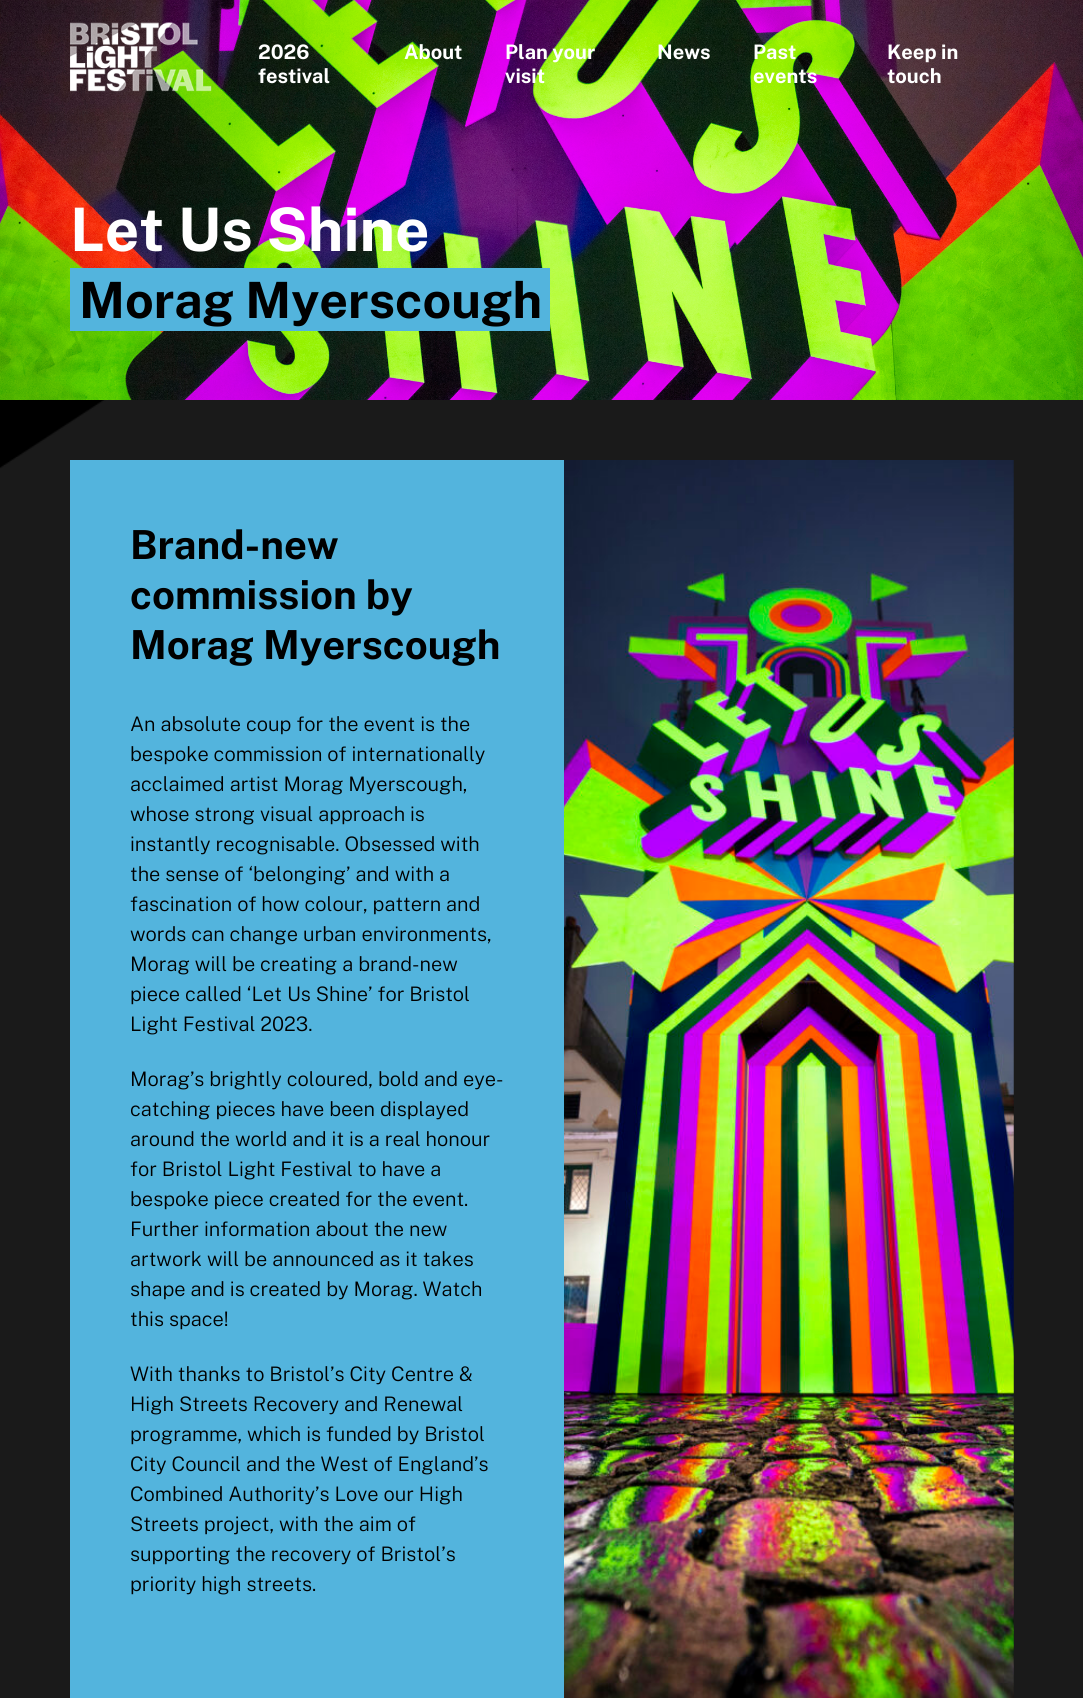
#include <cairo.h>
#include <math.h>
#include <stddef.h>

typedef struct { double x, y; const char *s; } line_t;

static void ink(cairo_t *ctx, unsigned color) {
    cairo_set_source_rgb(ctx, (color >> 16) / 255.0, (color >> 8 & 255) / 255.0, (color & 255) / 255.0);
}

static void paste(cairo_t *ctx, const char *path, double x, double y, double w, double h) {
    cairo_surface_t *image = cairo_image_surface_create_from_png(path);
    cairo_save(ctx);
    cairo_set_source_surface(ctx, image, x, y);
    cairo_rectangle(ctx, x, y, w, h);
    cairo_fill(ctx);
    cairo_restore(ctx);
    cairo_surface_destroy(image);
}

int main(void) {
    cairo_surface_t *surface = cairo_image_surface_create(CAIRO_FORMAT_RGB24, 1083, 1698);
    cairo_t *ctx = cairo_create(surface);
    cairo_font_options_t *options = cairo_font_options_create();
    cairo_font_options_set_hint_metrics(options, CAIRO_HINT_METRICS_OFF);
    cairo_font_options_set_hint_style(options, CAIRO_HINT_STYLE_NONE);
    cairo_set_font_options(ctx, options);
    cairo_set_miter_limit(ctx, 4);
    ink(ctx, 0x000000);
    cairo_paint(ctx);
    paste(ctx, "media/3.png", 0, 0, 1083, 400);
    paste(ctx, "media/1.png", 70, 22, 142, 70);
    cairo_select_font_face(ctx, "Public Sans", CAIRO_FONT_SLANT_NORMAL, CAIRO_FONT_WEIGHT_BOLD);
    cairo_set_font_size(ctx, 20);
    ink(ctx, 0xFFFFFF);
    {
        static const line_t items[] = {
            {258, 59, "2026"},
            {258, 83, "festival"},
            {404, 59, "About"},
            {505, 59, "Plan your"},
            {505, 83, "visit"},
            {657, 59, "News"},
            {753, 59, "Past"},
            {753, 83, "events"},
            {887, 59, "Keep in"},
            {887, 83, "touch"},
        };
        for (size_t i = 0; i < sizeof items / sizeof *items; i++) {
            cairo_move_to(ctx, items[i].x, items[i].y);
            cairo_show_text(ctx, items[i].s);
        }
    }
    paste(ctx, "media/2.png", 0, 400, 1083, 1298);
    cairo_set_font_size(ctx, 60);
    cairo_move_to(ctx, 70, 251);
    cairo_show_text(ctx, "Let Us Shine");
    ink(ctx, 0x53B4DD);
    cairo_rectangle(ctx, 70, 268, 480, 63);
    cairo_fill(ctx);
    cairo_set_font_size(ctx, 50);
    ink(ctx, 0x000000);
    cairo_move_to(ctx, 79, 318);
    cairo_show_text(ctx, "Morag Myerscough");
    ink(ctx, 0x53B4DD);
    cairo_rectangle(ctx, 70, 460, 494, 1238);
    cairo_fill(ctx);
    cairo_set_font_size(ctx, 40);
    ink(ctx, 0x000000);
    {
        static const line_t items[] = {
            {130, 559, "Brand-new"},
            {130, 609, "commission by"},
            {130, 659, "Morag Myerscough"},
        };
        for (size_t i = 0; i < sizeof items / sizeof *items; i++) {
            cairo_move_to(ctx, items[i].x, items[i].y);
            cairo_show_text(ctx, items[i].s);
        }
    }
    cairo_select_font_face(ctx, "Public Sans Light", CAIRO_FONT_SLANT_NORMAL, CAIRO_FONT_WEIGHT_NORMAL);
    cairo_set_font_size(ctx, 20);
    {
        static const line_t items[] = {
            {130, 731, "An absolute coup for the event is the"},
            {130, 761, "bespoke commission of internationally"},
            {130, 791, "acclaimed artist Morag Myerscough,"},
            {130, 821, "whose strong visual approach is"},
            {130, 851, "instantly recognisable. Obsessed with"},
            {130, 881, "the sense of ‘belonging’ and with a"},
            {130, 911, "fascination of how colour, pattern and"},
            {130, 941, "words can change urban environments,"},
            {130, 971, "Morag will be creating a brand-new"},
            {130, 1001, "piece called ‘Let Us Shine’ for Bristol"},
            {130, 1031, "Light Festival 2023."},
            {130, 1086, "Morag’s brightly coloured, bold and eye-"},
            {130, 1116, "catching pieces have been displayed"},
            {130, 1146, "around the world and it is a real honour"},
            {130, 1176, "for Bristol Light Festival to have a"},
            {130, 1206, "bespoke piece created for the event."},
            {130, 1236, "Further information about the new"},
            {130, 1266, "artwork will be announced as it takes"},
            {130, 1296, "shape and is created by Morag. Watch"},
            {130, 1326, "this space!"},
            {130, 1381, "With thanks to Bristol’s City Centre &"},
            {130, 1411, "High Streets Recovery and Renewal"},
            {130, 1441, "programme, which is funded by Bristol"},
            {130, 1471, "City Council and the West of England’s"},
            {130, 1501, "Combined Authority’s Love our High"},
            {130, 1531, "Streets project, with the aim of"},
            {130, 1561, "supporting the recovery of Bristol’s"},
            {130, 1591, "priority high streets."},
        };
        for (size_t i = 0; i < sizeof items / sizeof *items; i++) {
            cairo_move_to(ctx, items[i].x, items[i].y);
            cairo_show_text(ctx, items[i].s);
        }
    }
    paste(ctx, "media/4.png", 564, 460, 450, 1238);
    cairo_surface_write_to_png(surface, "image.png");
    cairo_font_options_destroy(options);
    cairo_destroy(ctx);
    cairo_surface_destroy(surface);
    return 0;
}
